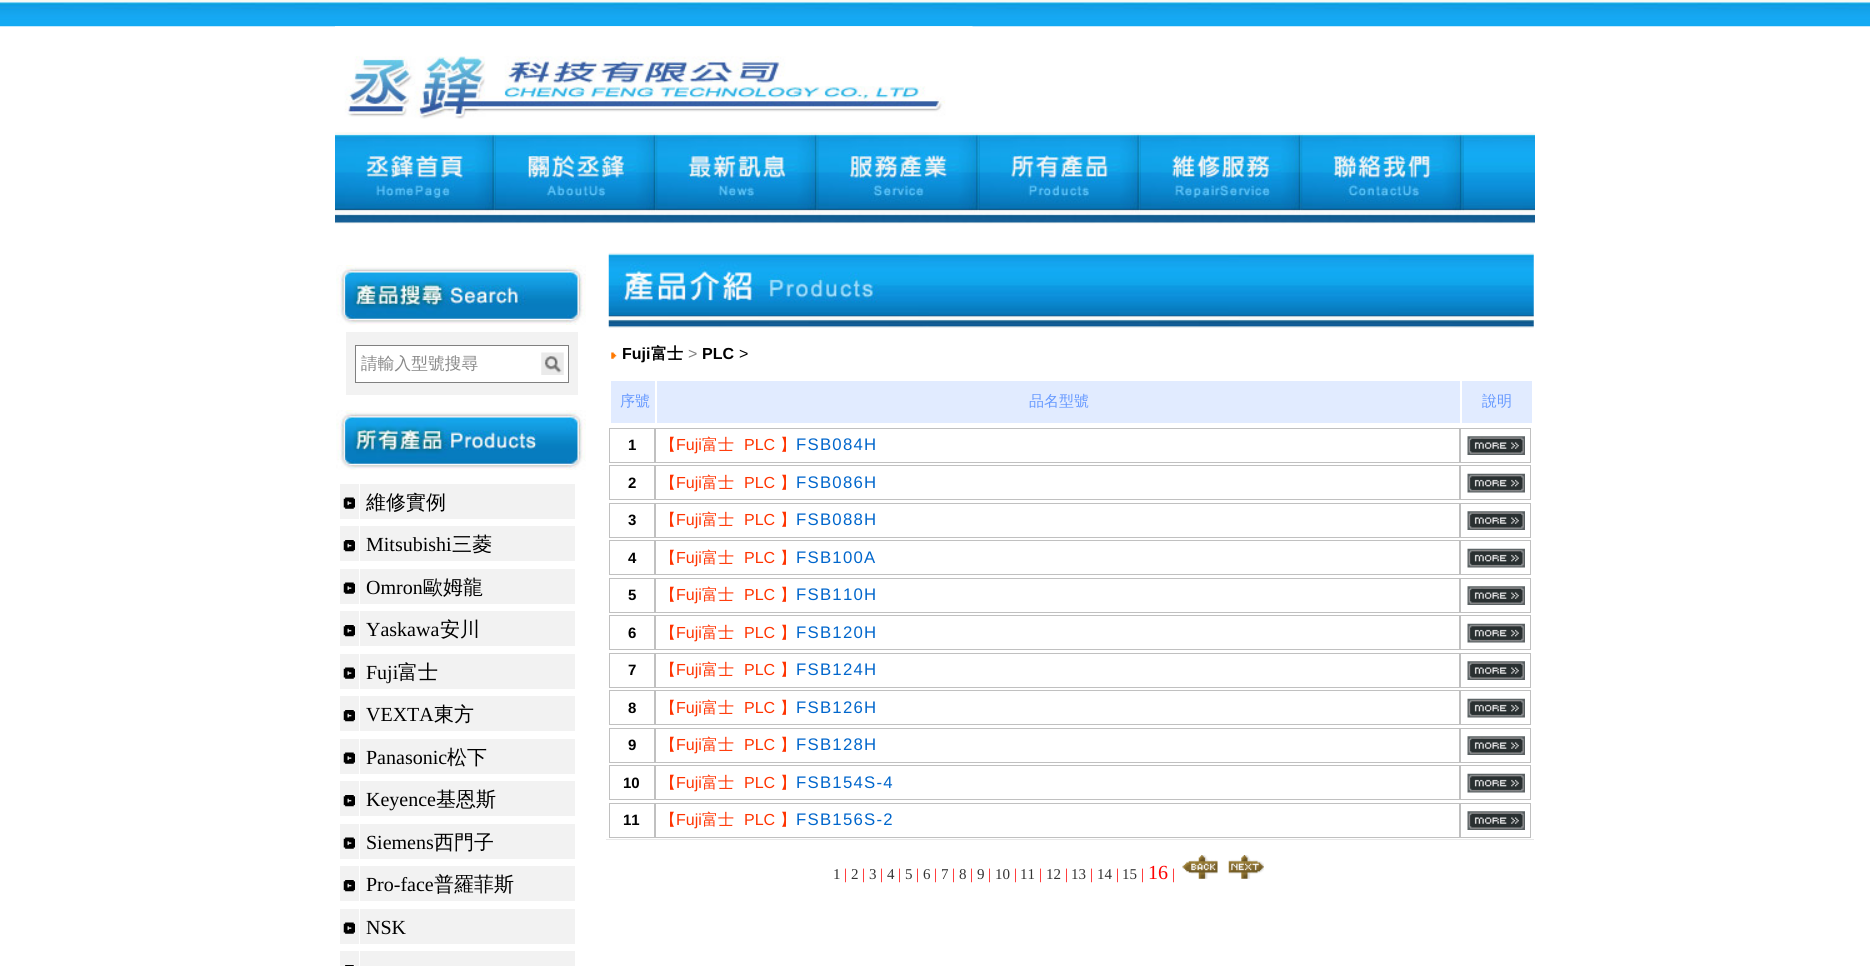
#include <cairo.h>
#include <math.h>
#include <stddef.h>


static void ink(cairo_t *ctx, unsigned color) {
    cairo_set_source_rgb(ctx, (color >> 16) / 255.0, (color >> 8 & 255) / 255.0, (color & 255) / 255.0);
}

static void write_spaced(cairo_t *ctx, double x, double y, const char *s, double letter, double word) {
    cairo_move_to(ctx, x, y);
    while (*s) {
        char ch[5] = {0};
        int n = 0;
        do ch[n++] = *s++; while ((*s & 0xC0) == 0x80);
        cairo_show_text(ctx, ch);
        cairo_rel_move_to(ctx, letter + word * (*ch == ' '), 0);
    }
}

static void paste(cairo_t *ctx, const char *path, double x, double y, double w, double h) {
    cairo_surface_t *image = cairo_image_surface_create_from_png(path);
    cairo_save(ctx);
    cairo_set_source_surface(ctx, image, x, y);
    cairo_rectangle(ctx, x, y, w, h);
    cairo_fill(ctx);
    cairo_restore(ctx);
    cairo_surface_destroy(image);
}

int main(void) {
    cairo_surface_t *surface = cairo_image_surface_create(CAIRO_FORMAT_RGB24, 1870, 966);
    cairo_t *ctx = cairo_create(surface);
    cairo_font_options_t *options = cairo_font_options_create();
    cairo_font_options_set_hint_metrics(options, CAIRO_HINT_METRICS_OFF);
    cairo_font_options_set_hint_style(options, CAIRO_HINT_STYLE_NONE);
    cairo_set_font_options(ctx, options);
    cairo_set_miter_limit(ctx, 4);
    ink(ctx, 0xFFFFFF);
    cairo_paint(ctx);
    paste(ctx, "media/1.png", 0, 0, 1870, 27);
    paste(ctx, "media/2.png", 335, 26, 638, 93);
    paste(ctx, "media/3.png", 335, 132, 1200, 92);
    paste(ctx, "media/4.png", 335, 132, 162, 81);
    paste(ctx, "media/5.png", 496, 132, 162, 81);
    paste(ctx, "media/6.png", 658, 132, 161, 81);
    paste(ctx, "media/7.png", 818, 132, 162, 81);
    paste(ctx, "media/8.png", 980, 132, 162, 81);
    paste(ctx, "media/9.png", 1141, 132, 162, 81);
    paste(ctx, "media/10.png", 1303, 132, 161, 81);
    paste(ctx, "media/11.png", 336, 265, 250, 60);
    ink(ctx, 0xF2F2F2);
    cairo_rectangle(ctx, 346, 332, 232, 63);
    cairo_fill(ctx);
    ink(ctx, 0xFFFFFF);
    cairo_rectangle(ctx, 355.5, 345.5, 213, 37);
    cairo_fill_preserve(ctx);
    ink(ctx, 0x808080);
    cairo_set_line_width(ctx, 1);
    cairo_stroke(ctx);
    cairo_select_font_face(ctx, "WenQuanYi Zen Hei Medium", CAIRO_FONT_SLANT_NORMAL, CAIRO_FONT_WEIGHT_NORMAL);
    cairo_set_font_size(ctx, 16.75);
    ink(ctx, 0x888888);
    cairo_move_to(ctx, 361, 369);
    cairo_show_text(ctx, "請輸入型號搜尋");
    paste(ctx, "media/12.png", 541, 352, 23, 23);
    paste(ctx, "media/13.png", 336, 410, 250, 60);
    ink(ctx, 0xF2F2F2);
    cairo_rectangle(ctx, 340, 484, 19, 35);
    cairo_fill(ctx);
    paste(ctx, "media/14.png", 343, 497, 12, 12);
    cairo_rectangle(ctx, 360, 484, 215, 35);
    cairo_fill(ctx);
    cairo_set_font_size(ctx, 20);
    ink(ctx, 0x000000);
    cairo_move_to(ctx, 366, 509);
    cairo_show_text(ctx, "維修實例");
    ink(ctx, 0xF2F2F2);
    cairo_rectangle(ctx, 340, 526, 19, 35);
    cairo_fill(ctx);
    paste(ctx, "media/15.png", 343, 540, 12, 12);
    cairo_rectangle(ctx, 360, 526, 215, 35);
    cairo_fill(ctx);
    cairo_select_font_face(ctx, "Liberation Serif", CAIRO_FONT_SLANT_NORMAL, CAIRO_FONT_WEIGHT_NORMAL);
    ink(ctx, 0x000000);
    cairo_move_to(ctx, 366, 551);
    cairo_show_text(ctx, "Mitsubishi");
    cairo_select_font_face(ctx, "WenQuanYi Zen Hei Medium", CAIRO_FONT_SLANT_NORMAL, CAIRO_FONT_WEIGHT_NORMAL);
    cairo_move_to(ctx, 452, 551);
    cairo_show_text(ctx, "三菱");
    ink(ctx, 0xF2F2F2);
    cairo_rectangle(ctx, 340, 569, 19, 35);
    cairo_fill(ctx);
    paste(ctx, "media/16.png", 343, 582, 12, 12);
    cairo_rectangle(ctx, 360, 569, 215, 35);
    cairo_fill(ctx);
    cairo_select_font_face(ctx, "Liberation Serif", CAIRO_FONT_SLANT_NORMAL, CAIRO_FONT_WEIGHT_NORMAL);
    ink(ctx, 0x000000);
    cairo_move_to(ctx, 366, 594);
    cairo_show_text(ctx, "Omron");
    cairo_select_font_face(ctx, "WenQuanYi Zen Hei Medium", CAIRO_FONT_SLANT_NORMAL, CAIRO_FONT_WEIGHT_NORMAL);
    cairo_move_to(ctx, 423, 594);
    cairo_show_text(ctx, "歐姆龍");
    ink(ctx, 0xF2F2F2);
    cairo_rectangle(ctx, 340, 611, 19, 35);
    cairo_fill(ctx);
    paste(ctx, "media/15.png", 343, 625, 12, 12);
    cairo_rectangle(ctx, 360, 611, 215, 35);
    cairo_fill(ctx);
    cairo_select_font_face(ctx, "Liberation Serif", CAIRO_FONT_SLANT_NORMAL, CAIRO_FONT_WEIGHT_NORMAL);
    ink(ctx, 0x000000);
    cairo_move_to(ctx, 366, 636);
    cairo_show_text(ctx, "Yaskawa");
    cairo_select_font_face(ctx, "WenQuanYi Zen Hei Medium", CAIRO_FONT_SLANT_NORMAL, CAIRO_FONT_WEIGHT_NORMAL);
    cairo_move_to(ctx, 440, 636);
    cairo_show_text(ctx, "安川");
    ink(ctx, 0xF2F2F2);
    cairo_rectangle(ctx, 340, 654, 19, 35);
    cairo_fill(ctx);
    paste(ctx, "media/14.png", 343, 667, 12, 12);
    cairo_rectangle(ctx, 360, 654, 215, 35);
    cairo_fill(ctx);
    cairo_select_font_face(ctx, "Liberation Serif", CAIRO_FONT_SLANT_NORMAL, CAIRO_FONT_WEIGHT_NORMAL);
    ink(ctx, 0x000000);
    cairo_move_to(ctx, 366, 679);
    cairo_show_text(ctx, "Fuji");
    cairo_select_font_face(ctx, "WenQuanYi Zen Hei Medium", CAIRO_FONT_SLANT_NORMAL, CAIRO_FONT_WEIGHT_NORMAL);
    cairo_move_to(ctx, 398, 679);
    cairo_show_text(ctx, "富士");
    ink(ctx, 0xF2F2F2);
    cairo_rectangle(ctx, 340, 696, 19, 35);
    cairo_fill(ctx);
    paste(ctx, "media/15.png", 343, 710, 12, 12);
    cairo_rectangle(ctx, 360, 696, 215, 35);
    cairo_fill(ctx);
    cairo_select_font_face(ctx, "Liberation Serif", CAIRO_FONT_SLANT_NORMAL, CAIRO_FONT_WEIGHT_NORMAL);
    ink(ctx, 0x000000);
    cairo_move_to(ctx, 366, 721);
    cairo_show_text(ctx, "VEXTA");
    cairo_select_font_face(ctx, "WenQuanYi Zen Hei Medium", CAIRO_FONT_SLANT_NORMAL, CAIRO_FONT_WEIGHT_NORMAL);
    cairo_move_to(ctx, 434, 721);
    cairo_show_text(ctx, "東方");
    ink(ctx, 0xF2F2F2);
    cairo_rectangle(ctx, 340, 739, 19, 35);
    cairo_fill(ctx);
    paste(ctx, "media/14.png", 343, 752, 12, 12);
    cairo_rectangle(ctx, 360, 739, 215, 35);
    cairo_fill(ctx);
    cairo_select_font_face(ctx, "Liberation Serif", CAIRO_FONT_SLANT_NORMAL, CAIRO_FONT_WEIGHT_NORMAL);
    ink(ctx, 0x000000);
    cairo_move_to(ctx, 366, 764);
    cairo_show_text(ctx, "Panasonic");
    cairo_select_font_face(ctx, "WenQuanYi Zen Hei Medium", CAIRO_FONT_SLANT_NORMAL, CAIRO_FONT_WEIGHT_NORMAL);
    cairo_move_to(ctx, 447, 764);
    cairo_show_text(ctx, "松下");
    ink(ctx, 0xF2F2F2);
    cairo_rectangle(ctx, 340, 781, 19, 35);
    cairo_fill(ctx);
    paste(ctx, "media/15.png", 343, 795, 12, 12);
    cairo_rectangle(ctx, 360, 781, 215, 35);
    cairo_fill(ctx);
    cairo_select_font_face(ctx, "Liberation Serif", CAIRO_FONT_SLANT_NORMAL, CAIRO_FONT_WEIGHT_NORMAL);
    ink(ctx, 0x000000);
    cairo_move_to(ctx, 366, 806);
    cairo_show_text(ctx, "Keyence");
    cairo_select_font_face(ctx, "WenQuanYi Zen Hei Medium", CAIRO_FONT_SLANT_NORMAL, CAIRO_FONT_WEIGHT_NORMAL);
    cairo_move_to(ctx, 436, 806);
    cairo_show_text(ctx, "基恩斯");
    ink(ctx, 0xF2F2F2);
    cairo_rectangle(ctx, 340, 824, 19, 35);
    cairo_fill(ctx);
    paste(ctx, "media/14.png", 343, 837, 12, 12);
    cairo_rectangle(ctx, 360, 824, 215, 35);
    cairo_fill(ctx);
    cairo_select_font_face(ctx, "Liberation Serif", CAIRO_FONT_SLANT_NORMAL, CAIRO_FONT_WEIGHT_NORMAL);
    ink(ctx, 0x000000);
    cairo_move_to(ctx, 366, 849);
    cairo_show_text(ctx, "Siemens");
    cairo_select_font_face(ctx, "WenQuanYi Zen Hei Medium", CAIRO_FONT_SLANT_NORMAL, CAIRO_FONT_WEIGHT_NORMAL);
    cairo_move_to(ctx, 434, 849);
    cairo_show_text(ctx, "西門子");
    ink(ctx, 0xF2F2F2);
    cairo_rectangle(ctx, 340, 866, 19, 35);
    cairo_fill(ctx);
    paste(ctx, "media/15.png", 343, 880, 12, 12);
    cairo_rectangle(ctx, 360, 866, 215, 35);
    cairo_fill(ctx);
    cairo_select_font_face(ctx, "Liberation Serif", CAIRO_FONT_SLANT_NORMAL, CAIRO_FONT_WEIGHT_NORMAL);
    ink(ctx, 0x000000);
    cairo_move_to(ctx, 366, 891);
    cairo_show_text(ctx, "Pro-face");
    cairo_select_font_face(ctx, "WenQuanYi Zen Hei Medium", CAIRO_FONT_SLANT_NORMAL, CAIRO_FONT_WEIGHT_NORMAL);
    cairo_move_to(ctx, 434, 891);
    cairo_show_text(ctx, "普羅菲斯");
    ink(ctx, 0xF2F2F2);
    cairo_rectangle(ctx, 340, 909, 19, 35);
    cairo_fill(ctx);
    paste(ctx, "media/14.png", 343, 922, 12, 12);
    cairo_rectangle(ctx, 360, 909, 215, 35);
    cairo_fill(ctx);
    cairo_select_font_face(ctx, "Liberation Serif", CAIRO_FONT_SLANT_NORMAL, CAIRO_FONT_WEIGHT_NORMAL);
    ink(ctx, 0x000000);
    cairo_move_to(ctx, 366, 934);
    cairo_show_text(ctx, "NSK");
    ink(ctx, 0xF2F2F2);
    cairo_rectangle(ctx, 340, 951, 19, 15);
    cairo_fill(ctx);
    paste(ctx, "media/17.png", 345, 965, 10, 1);
    cairo_rectangle(ctx, 360, 951, 215, 15);
    cairo_fill(ctx);
    paste(ctx, "media/18.png", 608, 252, 926, 76);
    paste(ctx, "media/19.png", 611, 352, 6, 7);
    cairo_select_font_face(ctx, "Liberation Sans", CAIRO_FONT_SLANT_NORMAL, CAIRO_FONT_WEIGHT_BOLD);
    cairo_set_font_size(ctx, 16);
    ink(ctx, 0x000000);
    cairo_move_to(ctx, 622, 359);
    cairo_show_text(ctx, "Fuji");
    cairo_select_font_face(ctx, "WenQuanYi Zen Hei", CAIRO_FONT_SLANT_NORMAL, CAIRO_FONT_WEIGHT_BOLD);
    cairo_move_to(ctx, 651, 359);
    cairo_show_text(ctx, "富士");
    cairo_select_font_face(ctx, "Liberation Sans", CAIRO_FONT_SLANT_NORMAL, CAIRO_FONT_WEIGHT_NORMAL);
    ink(ctx, 0x808080);
    cairo_move_to(ctx, 688, 359);
    cairo_show_text(ctx, ">");
    cairo_select_font_face(ctx, "Liberation Sans", CAIRO_FONT_SLANT_NORMAL, CAIRO_FONT_WEIGHT_BOLD);
    ink(ctx, 0x000000);
    cairo_move_to(ctx, 702, 359);
    cairo_show_text(ctx, "PLC");
    cairo_select_font_face(ctx, "Liberation Sans", CAIRO_FONT_SLANT_NORMAL, CAIRO_FONT_WEIGHT_NORMAL);
    cairo_move_to(ctx, 739, 359);
    cairo_show_text(ctx, ">");
    ink(ctx, 0xE1EBFF);
    cairo_rectangle(ctx, 611, 381, 44, 42);
    cairo_fill(ctx);
    cairo_select_font_face(ctx, "WenQuanYi Zen Hei Medium", CAIRO_FONT_SLANT_NORMAL, CAIRO_FONT_WEIGHT_NORMAL);
    cairo_set_font_size(ctx, 15);
    ink(ctx, 0x6699FF);
    cairo_move_to(ctx, 620, 406);
    cairo_show_text(ctx, "序號");
    ink(ctx, 0xE1EBFF);
    cairo_rectangle(ctx, 657, 381, 803, 42);
    cairo_fill(ctx);
    ink(ctx, 0x6699FF);
    cairo_move_to(ctx, 1029, 406);
    cairo_show_text(ctx, "品名型號");
    ink(ctx, 0xE1EBFF);
    cairo_rectangle(ctx, 1462, 381, 70, 42);
    cairo_fill(ctx);
    ink(ctx, 0x6699FF);
    cairo_move_to(ctx, 1482, 406);
    cairo_show_text(ctx, "說明");
    cairo_rectangle(ctx, 609.5, 428.5, 45, 34);
    ink(ctx, 0xC0C0C0);
    cairo_stroke(ctx);
    cairo_select_font_face(ctx, "Liberation Sans", CAIRO_FONT_SLANT_NORMAL, CAIRO_FONT_WEIGHT_BOLD);
    ink(ctx, 0x000000);
    cairo_move_to(ctx, 628, 450);
    cairo_show_text(ctx, "1");
    cairo_rectangle(ctx, 655.5, 428.5, 804, 34);
    ink(ctx, 0xC0C0C0);
    cairo_stroke(ctx);
    cairo_select_font_face(ctx, "WenQuanYi Zen Hei Medium", CAIRO_FONT_SLANT_NORMAL, CAIRO_FONT_WEIGHT_NORMAL);
    cairo_set_font_size(ctx, 16);
    ink(ctx, 0xFF3300);
    cairo_move_to(ctx, 660, 450);
    cairo_show_text(ctx, "【");
    cairo_select_font_face(ctx, "Liberation Sans", CAIRO_FONT_SLANT_NORMAL, CAIRO_FONT_WEIGHT_NORMAL);
    cairo_move_to(ctx, 676, 450);
    cairo_show_text(ctx, "Fuji");
    cairo_select_font_face(ctx, "WenQuanYi Zen Hei Medium", CAIRO_FONT_SLANT_NORMAL, CAIRO_FONT_WEIGHT_NORMAL);
    cairo_move_to(ctx, 702, 450);
    cairo_show_text(ctx, "富士");
    cairo_select_font_face(ctx, "Liberation Sans", CAIRO_FONT_SLANT_NORMAL, CAIRO_FONT_WEIGHT_NORMAL);
    cairo_move_to(ctx, 744, 450);
    cairo_show_text(ctx, "PLC");
    cairo_select_font_face(ctx, "WenQuanYi Zen Hei Medium", CAIRO_FONT_SLANT_NORMAL, CAIRO_FONT_WEIGHT_NORMAL);
    cairo_move_to(ctx, 780, 450);
    cairo_show_text(ctx, "】");
    cairo_select_font_face(ctx, "Liberation Sans", CAIRO_FONT_SLANT_NORMAL, CAIRO_FONT_WEIGHT_NORMAL);
    cairo_set_font_size(ctx, 16.75);
    ink(ctx, 0x0066CC);
    write_spaced(ctx, 796, 450, "FSB084H", 1.25, 0);
    cairo_rectangle(ctx, 1460.5, 428.5, 70, 34);
    ink(ctx, 0xC0C0C0);
    cairo_stroke(ctx);
    paste(ctx, "media/20.png", 1467, 436, 58, 19);
    cairo_rectangle(ctx, 609.5, 465.5, 45, 34);
    cairo_stroke(ctx);
    cairo_select_font_face(ctx, "Liberation Sans", CAIRO_FONT_SLANT_NORMAL, CAIRO_FONT_WEIGHT_BOLD);
    cairo_set_font_size(ctx, 15);
    ink(ctx, 0x000000);
    cairo_move_to(ctx, 628, 488);
    cairo_show_text(ctx, "2");
    cairo_rectangle(ctx, 655.5, 465.5, 804, 34);
    ink(ctx, 0xC0C0C0);
    cairo_stroke(ctx);
    cairo_select_font_face(ctx, "WenQuanYi Zen Hei Medium", CAIRO_FONT_SLANT_NORMAL, CAIRO_FONT_WEIGHT_NORMAL);
    cairo_set_font_size(ctx, 16);
    ink(ctx, 0xFF3300);
    cairo_move_to(ctx, 660, 488);
    cairo_show_text(ctx, "【");
    cairo_select_font_face(ctx, "Liberation Sans", CAIRO_FONT_SLANT_NORMAL, CAIRO_FONT_WEIGHT_NORMAL);
    cairo_move_to(ctx, 676, 488);
    cairo_show_text(ctx, "Fuji");
    cairo_select_font_face(ctx, "WenQuanYi Zen Hei Medium", CAIRO_FONT_SLANT_NORMAL, CAIRO_FONT_WEIGHT_NORMAL);
    cairo_move_to(ctx, 702, 488);
    cairo_show_text(ctx, "富士");
    cairo_select_font_face(ctx, "Liberation Sans", CAIRO_FONT_SLANT_NORMAL, CAIRO_FONT_WEIGHT_NORMAL);
    cairo_move_to(ctx, 744, 488);
    cairo_show_text(ctx, "PLC");
    cairo_select_font_face(ctx, "WenQuanYi Zen Hei Medium", CAIRO_FONT_SLANT_NORMAL, CAIRO_FONT_WEIGHT_NORMAL);
    cairo_move_to(ctx, 780, 488);
    cairo_show_text(ctx, "】");
    cairo_select_font_face(ctx, "Liberation Sans", CAIRO_FONT_SLANT_NORMAL, CAIRO_FONT_WEIGHT_NORMAL);
    cairo_set_font_size(ctx, 16.75);
    ink(ctx, 0x0066CC);
    write_spaced(ctx, 796, 488, "FSB086H", 1.25, 0);
    cairo_rectangle(ctx, 1460.5, 465.5, 70, 34);
    ink(ctx, 0xC0C0C0);
    cairo_stroke(ctx);
    paste(ctx, "media/21.png", 1467, 473, 58, 20);
    cairo_rectangle(ctx, 609.5, 503.5, 45, 34);
    cairo_stroke(ctx);
    cairo_select_font_face(ctx, "Liberation Sans", CAIRO_FONT_SLANT_NORMAL, CAIRO_FONT_WEIGHT_BOLD);
    cairo_set_font_size(ctx, 15);
    ink(ctx, 0x000000);
    cairo_move_to(ctx, 628, 525);
    cairo_show_text(ctx, "3");
    cairo_rectangle(ctx, 655.5, 503.5, 804, 34);
    ink(ctx, 0xC0C0C0);
    cairo_stroke(ctx);
    cairo_select_font_face(ctx, "WenQuanYi Zen Hei Medium", CAIRO_FONT_SLANT_NORMAL, CAIRO_FONT_WEIGHT_NORMAL);
    cairo_set_font_size(ctx, 16);
    ink(ctx, 0xFF3300);
    cairo_move_to(ctx, 660, 525);
    cairo_show_text(ctx, "【");
    cairo_select_font_face(ctx, "Liberation Sans", CAIRO_FONT_SLANT_NORMAL, CAIRO_FONT_WEIGHT_NORMAL);
    cairo_move_to(ctx, 676, 525);
    cairo_show_text(ctx, "Fuji");
    cairo_select_font_face(ctx, "WenQuanYi Zen Hei Medium", CAIRO_FONT_SLANT_NORMAL, CAIRO_FONT_WEIGHT_NORMAL);
    cairo_move_to(ctx, 702, 525);
    cairo_show_text(ctx, "富士");
    cairo_select_font_face(ctx, "Liberation Sans", CAIRO_FONT_SLANT_NORMAL, CAIRO_FONT_WEIGHT_NORMAL);
    cairo_move_to(ctx, 744, 525);
    cairo_show_text(ctx, "PLC");
    cairo_select_font_face(ctx, "WenQuanYi Zen Hei Medium", CAIRO_FONT_SLANT_NORMAL, CAIRO_FONT_WEIGHT_NORMAL);
    cairo_move_to(ctx, 780, 525);
    cairo_show_text(ctx, "】");
    cairo_select_font_face(ctx, "Liberation Sans", CAIRO_FONT_SLANT_NORMAL, CAIRO_FONT_WEIGHT_NORMAL);
    cairo_set_font_size(ctx, 16.75);
    ink(ctx, 0x0066CC);
    write_spaced(ctx, 796, 525, "FSB088H", 1.25, 0);
    cairo_rectangle(ctx, 1460.5, 503.5, 70, 34);
    ink(ctx, 0xC0C0C0);
    cairo_stroke(ctx);
    paste(ctx, "media/20.png", 1467, 511, 58, 19);
    cairo_rectangle(ctx, 609.5, 540.5, 45, 34);
    cairo_stroke(ctx);
    cairo_select_font_face(ctx, "Liberation Sans", CAIRO_FONT_SLANT_NORMAL, CAIRO_FONT_WEIGHT_BOLD);
    cairo_set_font_size(ctx, 15);
    ink(ctx, 0x000000);
    cairo_move_to(ctx, 628, 563);
    cairo_show_text(ctx, "4");
    cairo_rectangle(ctx, 655.5, 540.5, 804, 34);
    ink(ctx, 0xC0C0C0);
    cairo_stroke(ctx);
    cairo_select_font_face(ctx, "WenQuanYi Zen Hei Medium", CAIRO_FONT_SLANT_NORMAL, CAIRO_FONT_WEIGHT_NORMAL);
    cairo_set_font_size(ctx, 16);
    ink(ctx, 0xFF3300);
    cairo_move_to(ctx, 660, 563);
    cairo_show_text(ctx, "【");
    cairo_select_font_face(ctx, "Liberation Sans", CAIRO_FONT_SLANT_NORMAL, CAIRO_FONT_WEIGHT_NORMAL);
    cairo_move_to(ctx, 676, 563);
    cairo_show_text(ctx, "Fuji");
    cairo_select_font_face(ctx, "WenQuanYi Zen Hei Medium", CAIRO_FONT_SLANT_NORMAL, CAIRO_FONT_WEIGHT_NORMAL);
    cairo_move_to(ctx, 702, 563);
    cairo_show_text(ctx, "富士");
    cairo_select_font_face(ctx, "Liberation Sans", CAIRO_FONT_SLANT_NORMAL, CAIRO_FONT_WEIGHT_NORMAL);
    cairo_move_to(ctx, 744, 563);
    cairo_show_text(ctx, "PLC");
    cairo_select_font_face(ctx, "WenQuanYi Zen Hei Medium", CAIRO_FONT_SLANT_NORMAL, CAIRO_FONT_WEIGHT_NORMAL);
    cairo_move_to(ctx, 780, 563);
    cairo_show_text(ctx, "】");
    cairo_select_font_face(ctx, "Liberation Sans", CAIRO_FONT_SLANT_NORMAL, CAIRO_FONT_WEIGHT_NORMAL);
    cairo_set_font_size(ctx, 16.75);
    ink(ctx, 0x0066CC);
    write_spaced(ctx, 796, 563, "FSB100A", 1.25, 0);
    cairo_rectangle(ctx, 1460.5, 540.5, 70, 34);
    ink(ctx, 0xC0C0C0);
    cairo_stroke(ctx);
    paste(ctx, "media/21.png", 1467, 548, 58, 20);
    cairo_rectangle(ctx, 609.5, 578.5, 45, 34);
    cairo_stroke(ctx);
    cairo_select_font_face(ctx, "Liberation Sans", CAIRO_FONT_SLANT_NORMAL, CAIRO_FONT_WEIGHT_BOLD);
    cairo_set_font_size(ctx, 15);
    ink(ctx, 0x000000);
    cairo_move_to(ctx, 628, 600);
    cairo_show_text(ctx, "5");
    cairo_rectangle(ctx, 655.5, 578.5, 804, 34);
    ink(ctx, 0xC0C0C0);
    cairo_stroke(ctx);
    cairo_select_font_face(ctx, "WenQuanYi Zen Hei Medium", CAIRO_FONT_SLANT_NORMAL, CAIRO_FONT_WEIGHT_NORMAL);
    cairo_set_font_size(ctx, 16);
    ink(ctx, 0xFF3300);
    cairo_move_to(ctx, 660, 600);
    cairo_show_text(ctx, "【");
    cairo_select_font_face(ctx, "Liberation Sans", CAIRO_FONT_SLANT_NORMAL, CAIRO_FONT_WEIGHT_NORMAL);
    cairo_move_to(ctx, 676, 600);
    cairo_show_text(ctx, "Fuji");
    cairo_select_font_face(ctx, "WenQuanYi Zen Hei Medium", CAIRO_FONT_SLANT_NORMAL, CAIRO_FONT_WEIGHT_NORMAL);
    cairo_move_to(ctx, 702, 600);
    cairo_show_text(ctx, "富士");
    cairo_select_font_face(ctx, "Liberation Sans", CAIRO_FONT_SLANT_NORMAL, CAIRO_FONT_WEIGHT_NORMAL);
    cairo_move_to(ctx, 744, 600);
    cairo_show_text(ctx, "PLC");
    cairo_select_font_face(ctx, "WenQuanYi Zen Hei Medium", CAIRO_FONT_SLANT_NORMAL, CAIRO_FONT_WEIGHT_NORMAL);
    cairo_move_to(ctx, 780, 600);
    cairo_show_text(ctx, "】");
    cairo_select_font_face(ctx, "Liberation Sans", CAIRO_FONT_SLANT_NORMAL, CAIRO_FONT_WEIGHT_NORMAL);
    cairo_set_font_size(ctx, 16.75);
    ink(ctx, 0x0066CC);
    write_spaced(ctx, 796, 600, "FSB110H", 1.25, 0);
    cairo_rectangle(ctx, 1460.5, 578.5, 70, 34);
    ink(ctx, 0xC0C0C0);
    cairo_stroke(ctx);
    paste(ctx, "media/22.png", 1467, 586, 58, 19);
    cairo_rectangle(ctx, 609.5, 615.5, 45, 34);
    cairo_stroke(ctx);
    cairo_select_font_face(ctx, "Liberation Sans", CAIRO_FONT_SLANT_NORMAL, CAIRO_FONT_WEIGHT_BOLD);
    cairo_set_font_size(ctx, 15);
    ink(ctx, 0x000000);
    cairo_move_to(ctx, 628, 638);
    cairo_show_text(ctx, "6");
    cairo_rectangle(ctx, 655.5, 615.5, 804, 34);
    ink(ctx, 0xC0C0C0);
    cairo_stroke(ctx);
    cairo_select_font_face(ctx, "WenQuanYi Zen Hei Medium", CAIRO_FONT_SLANT_NORMAL, CAIRO_FONT_WEIGHT_NORMAL);
    cairo_set_font_size(ctx, 16);
    ink(ctx, 0xFF3300);
    cairo_move_to(ctx, 660, 638);
    cairo_show_text(ctx, "【");
    cairo_select_font_face(ctx, "Liberation Sans", CAIRO_FONT_SLANT_NORMAL, CAIRO_FONT_WEIGHT_NORMAL);
    cairo_move_to(ctx, 676, 638);
    cairo_show_text(ctx, "Fuji");
    cairo_select_font_face(ctx, "WenQuanYi Zen Hei Medium", CAIRO_FONT_SLANT_NORMAL, CAIRO_FONT_WEIGHT_NORMAL);
    cairo_move_to(ctx, 702, 638);
    cairo_show_text(ctx, "富士");
    cairo_select_font_face(ctx, "Liberation Sans", CAIRO_FONT_SLANT_NORMAL, CAIRO_FONT_WEIGHT_NORMAL);
    cairo_move_to(ctx, 744, 638);
    cairo_show_text(ctx, "PLC");
    cairo_select_font_face(ctx, "WenQuanYi Zen Hei Medium", CAIRO_FONT_SLANT_NORMAL, CAIRO_FONT_WEIGHT_NORMAL);
    cairo_move_to(ctx, 780, 638);
    cairo_show_text(ctx, "】");
    cairo_select_font_face(ctx, "Liberation Sans", CAIRO_FONT_SLANT_NORMAL, CAIRO_FONT_WEIGHT_NORMAL);
    cairo_set_font_size(ctx, 16.75);
    ink(ctx, 0x0066CC);
    write_spaced(ctx, 796, 638, "FSB120H", 1.25, 0);
    cairo_rectangle(ctx, 1460.5, 615.5, 70, 34);
    ink(ctx, 0xC0C0C0);
    cairo_stroke(ctx);
    paste(ctx, "media/21.png", 1467, 623, 58, 20);
    cairo_rectangle(ctx, 609.5, 653.5, 45, 34);
    cairo_stroke(ctx);
    cairo_select_font_face(ctx, "Liberation Sans", CAIRO_FONT_SLANT_NORMAL, CAIRO_FONT_WEIGHT_BOLD);
    cairo_set_font_size(ctx, 15);
    ink(ctx, 0x000000);
    cairo_move_to(ctx, 628, 675);
    cairo_show_text(ctx, "7");
    cairo_rectangle(ctx, 655.5, 653.5, 804, 34);
    ink(ctx, 0xC0C0C0);
    cairo_stroke(ctx);
    cairo_select_font_face(ctx, "WenQuanYi Zen Hei Medium", CAIRO_FONT_SLANT_NORMAL, CAIRO_FONT_WEIGHT_NORMAL);
    cairo_set_font_size(ctx, 16);
    ink(ctx, 0xFF3300);
    cairo_move_to(ctx, 660, 675);
    cairo_show_text(ctx, "【");
    cairo_select_font_face(ctx, "Liberation Sans", CAIRO_FONT_SLANT_NORMAL, CAIRO_FONT_WEIGHT_NORMAL);
    cairo_move_to(ctx, 676, 675);
    cairo_show_text(ctx, "Fuji");
    cairo_select_font_face(ctx, "WenQuanYi Zen Hei Medium", CAIRO_FONT_SLANT_NORMAL, CAIRO_FONT_WEIGHT_NORMAL);
    cairo_move_to(ctx, 702, 675);
    cairo_show_text(ctx, "富士");
    cairo_select_font_face(ctx, "Liberation Sans", CAIRO_FONT_SLANT_NORMAL, CAIRO_FONT_WEIGHT_NORMAL);
    cairo_move_to(ctx, 744, 675);
    cairo_show_text(ctx, "PLC");
    cairo_select_font_face(ctx, "WenQuanYi Zen Hei Medium", CAIRO_FONT_SLANT_NORMAL, CAIRO_FONT_WEIGHT_NORMAL);
    cairo_move_to(ctx, 780, 675);
    cairo_show_text(ctx, "】");
    cairo_select_font_face(ctx, "Liberation Sans", CAIRO_FONT_SLANT_NORMAL, CAIRO_FONT_WEIGHT_NORMAL);
    cairo_set_font_size(ctx, 16.75);
    ink(ctx, 0x0066CC);
    write_spaced(ctx, 796, 675, "FSB124H", 1.25, 0);
    cairo_rectangle(ctx, 1460.5, 653.5, 70, 34);
    ink(ctx, 0xC0C0C0);
    cairo_stroke(ctx);
    paste(ctx, "media/20.png", 1467, 661, 58, 19);
    cairo_rectangle(ctx, 609.5, 690.5, 45, 34);
    cairo_stroke(ctx);
    cairo_select_font_face(ctx, "Liberation Sans", CAIRO_FONT_SLANT_NORMAL, CAIRO_FONT_WEIGHT_BOLD);
    cairo_set_font_size(ctx, 15);
    ink(ctx, 0x000000);
    cairo_move_to(ctx, 628, 713);
    cairo_show_text(ctx, "8");
    cairo_rectangle(ctx, 655.5, 690.5, 804, 34);
    ink(ctx, 0xC0C0C0);
    cairo_stroke(ctx);
    cairo_select_font_face(ctx, "WenQuanYi Zen Hei Medium", CAIRO_FONT_SLANT_NORMAL, CAIRO_FONT_WEIGHT_NORMAL);
    cairo_set_font_size(ctx, 16);
    ink(ctx, 0xFF3300);
    cairo_move_to(ctx, 660, 713);
    cairo_show_text(ctx, "【");
    cairo_select_font_face(ctx, "Liberation Sans", CAIRO_FONT_SLANT_NORMAL, CAIRO_FONT_WEIGHT_NORMAL);
    cairo_move_to(ctx, 676, 713);
    cairo_show_text(ctx, "Fuji");
    cairo_select_font_face(ctx, "WenQuanYi Zen Hei Medium", CAIRO_FONT_SLANT_NORMAL, CAIRO_FONT_WEIGHT_NORMAL);
    cairo_move_to(ctx, 702, 713);
    cairo_show_text(ctx, "富士");
    cairo_select_font_face(ctx, "Liberation Sans", CAIRO_FONT_SLANT_NORMAL, CAIRO_FONT_WEIGHT_NORMAL);
    cairo_move_to(ctx, 744, 713);
    cairo_show_text(ctx, "PLC");
    cairo_select_font_face(ctx, "WenQuanYi Zen Hei Medium", CAIRO_FONT_SLANT_NORMAL, CAIRO_FONT_WEIGHT_NORMAL);
    cairo_move_to(ctx, 780, 713);
    cairo_show_text(ctx, "】");
    cairo_select_font_face(ctx, "Liberation Sans", CAIRO_FONT_SLANT_NORMAL, CAIRO_FONT_WEIGHT_NORMAL);
    cairo_set_font_size(ctx, 16.75);
    ink(ctx, 0x0066CC);
    write_spaced(ctx, 796, 713, "FSB126H", 1.25, 0);
    cairo_rectangle(ctx, 1460.5, 690.5, 70, 34);
    ink(ctx, 0xC0C0C0);
    cairo_stroke(ctx);
    paste(ctx, "media/21.png", 1467, 698, 58, 20);
    cairo_rectangle(ctx, 609.5, 728.5, 45, 34);
    cairo_stroke(ctx);
    cairo_select_font_face(ctx, "Liberation Sans", CAIRO_FONT_SLANT_NORMAL, CAIRO_FONT_WEIGHT_BOLD);
    cairo_set_font_size(ctx, 15);
    ink(ctx, 0x000000);
    cairo_move_to(ctx, 628, 750);
    cairo_show_text(ctx, "9");
    cairo_rectangle(ctx, 655.5, 728.5, 804, 34);
    ink(ctx, 0xC0C0C0);
    cairo_stroke(ctx);
    cairo_select_font_face(ctx, "WenQuanYi Zen Hei Medium", CAIRO_FONT_SLANT_NORMAL, CAIRO_FONT_WEIGHT_NORMAL);
    cairo_set_font_size(ctx, 16);
    ink(ctx, 0xFF3300);
    cairo_move_to(ctx, 660, 750);
    cairo_show_text(ctx, "【");
    cairo_select_font_face(ctx, "Liberation Sans", CAIRO_FONT_SLANT_NORMAL, CAIRO_FONT_WEIGHT_NORMAL);
    cairo_move_to(ctx, 676, 750);
    cairo_show_text(ctx, "Fuji");
    cairo_select_font_face(ctx, "WenQuanYi Zen Hei Medium", CAIRO_FONT_SLANT_NORMAL, CAIRO_FONT_WEIGHT_NORMAL);
    cairo_move_to(ctx, 702, 750);
    cairo_show_text(ctx, "富士");
    cairo_select_font_face(ctx, "Liberation Sans", CAIRO_FONT_SLANT_NORMAL, CAIRO_FONT_WEIGHT_NORMAL);
    cairo_move_to(ctx, 744, 750);
    cairo_show_text(ctx, "PLC");
    cairo_select_font_face(ctx, "WenQuanYi Zen Hei Medium", CAIRO_FONT_SLANT_NORMAL, CAIRO_FONT_WEIGHT_NORMAL);
    cairo_move_to(ctx, 780, 750);
    cairo_show_text(ctx, "】");
    cairo_select_font_face(ctx, "Liberation Sans", CAIRO_FONT_SLANT_NORMAL, CAIRO_FONT_WEIGHT_NORMAL);
    cairo_set_font_size(ctx, 16.75);
    ink(ctx, 0x0066CC);
    write_spaced(ctx, 796, 750, "FSB128H", 1.25, 0);
    cairo_rectangle(ctx, 1460.5, 728.5, 70, 34);
    ink(ctx, 0xC0C0C0);
    cairo_stroke(ctx);
    paste(ctx, "media/20.png", 1467, 736, 58, 19);
    cairo_rectangle(ctx, 609.5, 765.5, 45, 34);
    cairo_stroke(ctx);
    cairo_select_font_face(ctx, "Liberation Sans", CAIRO_FONT_SLANT_NORMAL, CAIRO_FONT_WEIGHT_BOLD);
    cairo_set_font_size(ctx, 15);
    ink(ctx, 0x000000);
    cairo_move_to(ctx, 623, 788);
    cairo_show_text(ctx, "10");
    cairo_rectangle(ctx, 655.5, 765.5, 804, 34);
    ink(ctx, 0xC0C0C0);
    cairo_stroke(ctx);
    cairo_select_font_face(ctx, "WenQuanYi Zen Hei Medium", CAIRO_FONT_SLANT_NORMAL, CAIRO_FONT_WEIGHT_NORMAL);
    cairo_set_font_size(ctx, 16);
    ink(ctx, 0xFF3300);
    cairo_move_to(ctx, 660, 788);
    cairo_show_text(ctx, "【");
    cairo_select_font_face(ctx, "Liberation Sans", CAIRO_FONT_SLANT_NORMAL, CAIRO_FONT_WEIGHT_NORMAL);
    cairo_move_to(ctx, 676, 788);
    cairo_show_text(ctx, "Fuji");
    cairo_select_font_face(ctx, "WenQuanYi Zen Hei Medium", CAIRO_FONT_SLANT_NORMAL, CAIRO_FONT_WEIGHT_NORMAL);
    cairo_move_to(ctx, 702, 788);
    cairo_show_text(ctx, "富士");
    cairo_select_font_face(ctx, "Liberation Sans", CAIRO_FONT_SLANT_NORMAL, CAIRO_FONT_WEIGHT_NORMAL);
    cairo_move_to(ctx, 744, 788);
    cairo_show_text(ctx, "PLC");
    cairo_select_font_face(ctx, "WenQuanYi Zen Hei Medium", CAIRO_FONT_SLANT_NORMAL, CAIRO_FONT_WEIGHT_NORMAL);
    cairo_move_to(ctx, 780, 788);
    cairo_show_text(ctx, "】");
    cairo_select_font_face(ctx, "Liberation Sans", CAIRO_FONT_SLANT_NORMAL, CAIRO_FONT_WEIGHT_NORMAL);
    cairo_set_font_size(ctx, 16.75);
    ink(ctx, 0x0066CC);
    write_spaced(ctx, 796, 788, "FSB154S-4", 1.25, 0);
    cairo_rectangle(ctx, 1460.5, 765.5, 70, 34);
    ink(ctx, 0xC0C0C0);
    cairo_stroke(ctx);
    paste(ctx, "media/23.png", 1467, 773, 58, 20);
    cairo_rectangle(ctx, 609.5, 803.5, 45, 34);
    cairo_stroke(ctx);
    cairo_select_font_face(ctx, "Liberation Sans", CAIRO_FONT_SLANT_NORMAL, CAIRO_FONT_WEIGHT_BOLD);
    cairo_set_font_size(ctx, 15);
    ink(ctx, 0x000000);
    cairo_move_to(ctx, 623, 825);
    cairo_show_text(ctx, "11");
    cairo_rectangle(ctx, 655.5, 803.5, 804, 34);
    ink(ctx, 0xC0C0C0);
    cairo_stroke(ctx);
    cairo_select_font_face(ctx, "WenQuanYi Zen Hei Medium", CAIRO_FONT_SLANT_NORMAL, CAIRO_FONT_WEIGHT_NORMAL);
    cairo_set_font_size(ctx, 16);
    ink(ctx, 0xFF3300);
    cairo_move_to(ctx, 660, 825);
    cairo_show_text(ctx, "【");
    cairo_select_font_face(ctx, "Liberation Sans", CAIRO_FONT_SLANT_NORMAL, CAIRO_FONT_WEIGHT_NORMAL);
    cairo_move_to(ctx, 676, 825);
    cairo_show_text(ctx, "Fuji");
    cairo_select_font_face(ctx, "WenQuanYi Zen Hei Medium", CAIRO_FONT_SLANT_NORMAL, CAIRO_FONT_WEIGHT_NORMAL);
    cairo_move_to(ctx, 702, 825);
    cairo_show_text(ctx, "富士");
    cairo_select_font_face(ctx, "Liberation Sans", CAIRO_FONT_SLANT_NORMAL, CAIRO_FONT_WEIGHT_NORMAL);
    cairo_move_to(ctx, 744, 825);
    cairo_show_text(ctx, "PLC");
    cairo_select_font_face(ctx, "WenQuanYi Zen Hei Medium", CAIRO_FONT_SLANT_NORMAL, CAIRO_FONT_WEIGHT_NORMAL);
    cairo_move_to(ctx, 780, 825);
    cairo_show_text(ctx, "】");
    cairo_select_font_face(ctx, "Liberation Sans", CAIRO_FONT_SLANT_NORMAL, CAIRO_FONT_WEIGHT_NORMAL);
    cairo_set_font_size(ctx, 16.75);
    ink(ctx, 0x0066CC);
    write_spaced(ctx, 796, 825, "FSB156S-2", 1.25, 0);
    cairo_rectangle(ctx, 1460.5, 803.5, 70, 34);
    ink(ctx, 0xC0C0C0);
    cairo_stroke(ctx);
    paste(ctx, "media/20.png", 1467, 811, 58, 19);
    ink(ctx, 0xE8E8E8);
    cairo_rectangle(ctx, 606, 839, 928, 1);
    cairo_fill(ctx);
    cairo_select_font_face(ctx, "Liberation Serif", CAIRO_FONT_SLANT_NORMAL, CAIRO_FONT_WEIGHT_NORMAL);
    cairo_set_font_size(ctx, 15);
    ink(ctx, 0x333333);
    cairo_move_to(ctx, 833, 879);
    cairo_show_text(ctx, "1");
    ink(ctx, 0xFF0000);
    cairo_move_to(ctx, 844, 879);
    cairo_show_text(ctx, "|");
    ink(ctx, 0x333333);
    cairo_move_to(ctx, 851, 879);
    cairo_show_text(ctx, "2");
    ink(ctx, 0xFF0000);
    cairo_move_to(ctx, 862, 879);
    cairo_show_text(ctx, "|");
    ink(ctx, 0x333333);
    cairo_move_to(ctx, 869, 879);
    cairo_show_text(ctx, "3");
    ink(ctx, 0xFF0000);
    cairo_move_to(ctx, 880, 879);
    cairo_show_text(ctx, "|");
    ink(ctx, 0x333333);
    cairo_move_to(ctx, 887, 879);
    cairo_show_text(ctx, "4");
    ink(ctx, 0xFF0000);
    cairo_move_to(ctx, 898, 879);
    cairo_show_text(ctx, "|");
    ink(ctx, 0x333333);
    cairo_move_to(ctx, 905, 879);
    cairo_show_text(ctx, "5");
    ink(ctx, 0xFF0000);
    cairo_move_to(ctx, 916, 879);
    cairo_show_text(ctx, "|");
    ink(ctx, 0x333333);
    cairo_move_to(ctx, 923, 879);
    cairo_show_text(ctx, "6");
    ink(ctx, 0xFF0000);
    cairo_move_to(ctx, 934, 879);
    cairo_show_text(ctx, "|");
    ink(ctx, 0x333333);
    cairo_move_to(ctx, 941, 879);
    cairo_show_text(ctx, "7");
    ink(ctx, 0xFF0000);
    cairo_move_to(ctx, 952, 879);
    cairo_show_text(ctx, "|");
    ink(ctx, 0x333333);
    cairo_move_to(ctx, 959, 879);
    cairo_show_text(ctx, "8");
    ink(ctx, 0xFF0000);
    cairo_move_to(ctx, 970, 879);
    cairo_show_text(ctx, "|");
    ink(ctx, 0x333333);
    cairo_move_to(ctx, 977, 879);
    cairo_show_text(ctx, "9");
    ink(ctx, 0xFF0000);
    cairo_move_to(ctx, 988, 879);
    cairo_show_text(ctx, "|");
    ink(ctx, 0x333333);
    cairo_move_to(ctx, 995, 879);
    cairo_show_text(ctx, "10");
    ink(ctx, 0xFF0000);
    cairo_move_to(ctx, 1014, 879);
    cairo_show_text(ctx, "|");
    ink(ctx, 0x333333);
    cairo_move_to(ctx, 1020, 879);
    cairo_show_text(ctx, "11");
    ink(ctx, 0xFF0000);
    cairo_move_to(ctx, 1039, 879);
    cairo_show_text(ctx, "|");
    ink(ctx, 0x333333);
    cairo_move_to(ctx, 1046, 879);
    cairo_show_text(ctx, "12");
    ink(ctx, 0xFF0000);
    cairo_move_to(ctx, 1065, 879);
    cairo_show_text(ctx, "|");
    ink(ctx, 0x333333);
    cairo_move_to(ctx, 1071, 879);
    cairo_show_text(ctx, "13");
    ink(ctx, 0xFF0000);
    cairo_move_to(ctx, 1090, 879);
    cairo_show_text(ctx, "|");
    ink(ctx, 0x333333);
    cairo_move_to(ctx, 1097, 879);
    cairo_show_text(ctx, "14");
    ink(ctx, 0xFF0000);
    cairo_move_to(ctx, 1116, 879);
    cairo_show_text(ctx, "|");
    ink(ctx, 0x333333);
    cairo_move_to(ctx, 1122, 879);
    cairo_show_text(ctx, "15");
    ink(ctx, 0xFF0000);
    cairo_move_to(ctx, 1141, 879);
    cairo_show_text(ctx, "|");
    cairo_set_font_size(ctx, 20);
    cairo_move_to(ctx, 1148, 879);
    cairo_show_text(ctx, "16");
    cairo_set_font_size(ctx, 15);
    cairo_move_to(ctx, 1172, 879);
    cairo_show_text(ctx, "|");
    paste(ctx, "media/24.png", 1182, 855, 36, 24);
    paste(ctx, "media/25.png", 1228, 855, 36, 24);
    cairo_surface_write_to_png(surface, "image.png");
    cairo_font_options_destroy(options);
    cairo_destroy(ctx);
    cairo_surface_destroy(surface);
    return 0;
}
